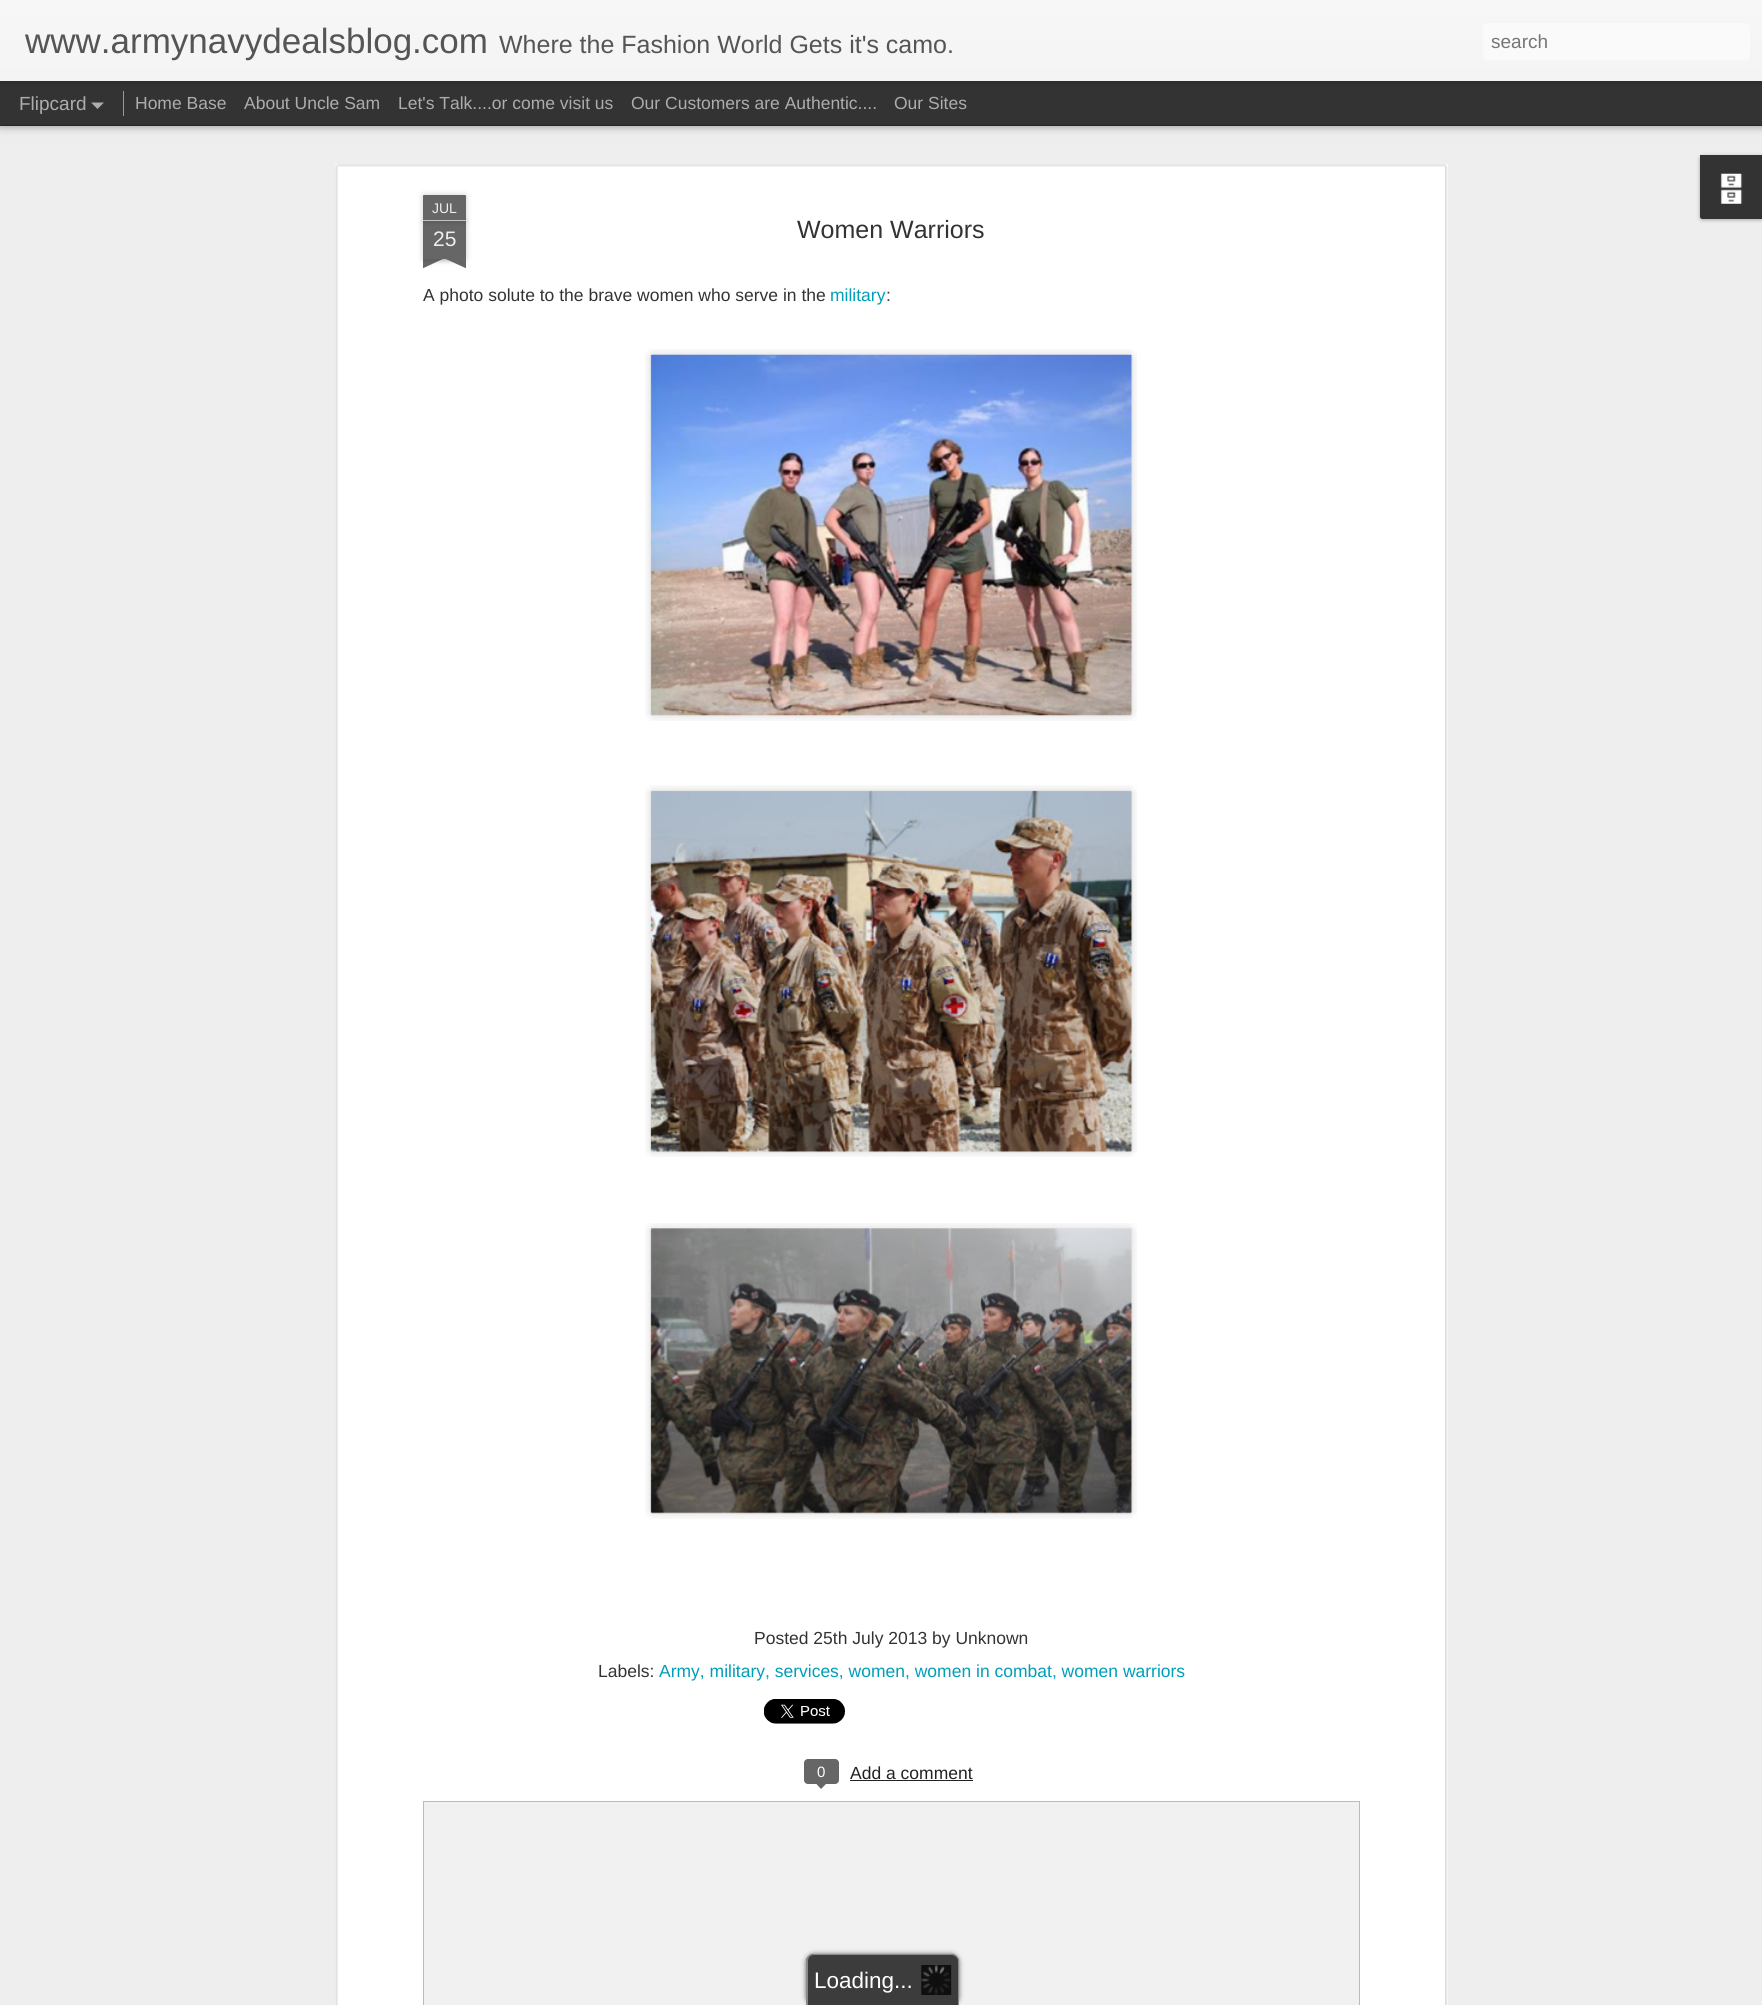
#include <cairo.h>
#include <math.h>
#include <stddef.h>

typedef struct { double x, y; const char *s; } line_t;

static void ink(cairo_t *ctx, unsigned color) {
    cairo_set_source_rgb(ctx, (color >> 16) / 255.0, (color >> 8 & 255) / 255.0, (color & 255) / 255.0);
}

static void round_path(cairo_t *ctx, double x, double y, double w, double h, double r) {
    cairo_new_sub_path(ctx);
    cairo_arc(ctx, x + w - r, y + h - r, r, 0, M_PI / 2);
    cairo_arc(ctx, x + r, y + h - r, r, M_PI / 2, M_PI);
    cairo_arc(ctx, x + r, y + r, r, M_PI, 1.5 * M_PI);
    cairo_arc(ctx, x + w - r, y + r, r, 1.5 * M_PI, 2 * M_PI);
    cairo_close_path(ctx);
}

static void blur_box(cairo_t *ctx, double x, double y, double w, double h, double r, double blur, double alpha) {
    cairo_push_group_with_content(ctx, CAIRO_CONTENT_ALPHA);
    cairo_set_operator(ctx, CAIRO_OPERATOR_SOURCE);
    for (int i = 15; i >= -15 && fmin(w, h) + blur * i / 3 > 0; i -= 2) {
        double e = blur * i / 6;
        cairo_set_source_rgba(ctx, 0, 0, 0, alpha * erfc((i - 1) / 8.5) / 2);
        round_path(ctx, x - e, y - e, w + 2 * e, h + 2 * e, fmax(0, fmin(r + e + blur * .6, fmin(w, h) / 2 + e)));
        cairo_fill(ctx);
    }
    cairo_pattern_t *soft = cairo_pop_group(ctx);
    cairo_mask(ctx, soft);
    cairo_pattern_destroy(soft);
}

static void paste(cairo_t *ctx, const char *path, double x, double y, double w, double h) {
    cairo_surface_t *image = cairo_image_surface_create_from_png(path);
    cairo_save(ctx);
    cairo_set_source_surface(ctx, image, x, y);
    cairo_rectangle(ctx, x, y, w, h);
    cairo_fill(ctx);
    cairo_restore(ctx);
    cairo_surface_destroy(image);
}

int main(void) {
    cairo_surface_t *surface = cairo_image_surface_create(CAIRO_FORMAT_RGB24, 1762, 2005);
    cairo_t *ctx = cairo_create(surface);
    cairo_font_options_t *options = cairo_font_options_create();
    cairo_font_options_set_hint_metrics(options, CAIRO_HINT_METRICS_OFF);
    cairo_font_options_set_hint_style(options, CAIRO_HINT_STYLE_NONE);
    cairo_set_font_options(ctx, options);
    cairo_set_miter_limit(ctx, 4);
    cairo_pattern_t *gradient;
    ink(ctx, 0x333333);
    cairo_paint(ctx);
    ink(ctx, 0xEEEEEE);
    cairo_rectangle(ctx, 0, 126, 1762, 1879);
    cairo_fill(ctx);
    ink(ctx, 0x000000);
    blur_box(ctx, 0, 81, 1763, 44, 0, 5, 0.5);
    ink(ctx, 0x333333);
    cairo_rectangle(ctx, 0, 81, 1762, 44);
    cairo_fill(ctx);
    ink(ctx, 0x000000);
    blur_box(ctx, 0, 0, 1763, 81, 0, 3, 0.3);
    gradient = cairo_pattern_create_linear(0, 0, 0, 81);
    cairo_pattern_add_color_stop_rgba(gradient, 0, 0.969, 0.969, 0.969, 1);
    cairo_pattern_add_color_stop_rgba(gradient, 1, 0.957, 0.957, 0.957, 1);
    cairo_set_source(ctx, gradient);
    cairo_pattern_destroy(gradient);
    cairo_rectangle(ctx, 0, 0, 1762, 81);
    cairo_fill(ctx);
    cairo_select_font_face(ctx, "Liberation Sans", CAIRO_FONT_SLANT_NORMAL, CAIRO_FONT_WEIGHT_NORMAL);
    cairo_set_font_size(ctx, 35);
    ink(ctx, 0x555555);
    cairo_move_to(ctx, 25, 53);
    cairo_show_text(ctx, "www.armynavydealsblog.com");
    cairo_set_font_size(ctx, 25);
    cairo_move_to(ctx, 499, 53);
    cairo_show_text(ctx, "Where the Fashion World Gets it's camo.");
    ink(ctx, 0xFAFAFA);
    round_path(ctx, 1483, 23, 267, 37, 4);
    cairo_fill(ctx);
    cairo_set_font_size(ctx, 19);
    ink(ctx, 0x757575);
    cairo_move_to(ctx, 1491, 48);
    cairo_show_text(ctx, "search");
    ink(ctx, 0xADADAD);
    cairo_move_to(ctx, 19, 110);
    cairo_show_text(ctx, "Flipcard");
    cairo_new_path(ctx);
    cairo_move_to(ctx, 91, 102.5);
    cairo_line_to(ctx, 104, 102.5);
    cairo_line_to(ctx, 97.5, 109);
    cairo_close_path(ctx);
    cairo_fill(ctx);
    ink(ctx, 0x999999);
    cairo_rectangle(ctx, 123, 91, 1, 25);
    cairo_fill(ctx);
    cairo_set_font_size(ctx, 17.5);
    ink(ctx, 0xADADAD);
    {
        static const line_t items[] = {
            {135, 109, "Home Base"},
            {244, 109, "About Uncle Sam"},
            {398, 109, "Let's Talk....or come visit us"},
            {631, 109, "Our Customers are Authentic...."},
            {894, 109, "Our Sites"},
        };
        for (size_t i = 0; i < sizeof items / sizeof *items; i++) {
            cairo_move_to(ctx, items[i].x, items[i].y);
            cairo_show_text(ctx, items[i].s);
        }
    }
    ink(ctx, 0x000000);
    blur_box(ctx, 1700, 156, 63, 64, 2.5, 2, 0.3);
    ink(ctx, 0x333333);
    cairo_new_path(ctx);
    cairo_move_to(ctx, 1700, 155);
    cairo_line_to(ctx, 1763, 155);
    cairo_line_to(ctx, 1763, 219);
    cairo_line_to(ctx, 1702.5, 219);
    cairo_curve_to(ctx, 1701, 219, 1700, 218, 1700, 216.5);
    cairo_close_path(ctx);
    cairo_fill(ctx);
    paste(ctx, "media/1.png", 1720, 173, 23, 31);
    ink(ctx, 0xFFFFFF);
    cairo_rectangle(ctx, 335, 164, 1113, 1841);
    cairo_fill(ctx);
    paste(ctx, "media/2.png", 335, 164, 1113, 1841);
    ink(ctx, 0x000000);
    blur_box(ctx, 423, 221, 43, 38, 0, 3, 0.2);
    ink(ctx, 0x666666);
    cairo_rectangle(ctx, 423, 221, 43, 38);
    cairo_fill(ctx);
    ink(ctx, 0x000000);
    blur_box(ctx, 423, 195, 43, 26, 1, 3, 0.2);
    ink(ctx, 0x666666);
    cairo_new_path(ctx);
    cairo_move_to(ctx, 424, 195);
    cairo_line_to(ctx, 465, 195);
    cairo_curve_to(ctx, 465.5, 195, 466, 195.5, 466, 196);
    cairo_line_to(ctx, 466, 221);
    cairo_line_to(ctx, 423, 221);
    cairo_line_to(ctx, 423, 196);
    cairo_curve_to(ctx, 423, 195.5, 423.5, 195, 424, 195);
    cairo_close_path(ctx);
    cairo_fill(ctx);
    ink(ctx, 0xC2C2C2);
    cairo_rectangle(ctx, 423, 220, 43, 1);
    cairo_fill(ctx);
    cairo_set_font_size(ctx, 14);
    ink(ctx, 0xEEEEEE);
    cairo_move_to(ctx, 432, 213);
    cairo_show_text(ctx, "JUL");
    cairo_set_font_size(ctx, 21);
    cairo_move_to(ctx, 433, 246);
    cairo_show_text(ctx, "25");
    cairo_save(ctx);
    cairo_rectangle(ctx, 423, 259, 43, 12);
    cairo_clip(ctx);
    ink(ctx, 0x000000);
    blur_box(ctx, 411, 246, 63, 13, 0, 3, 0.2);
    cairo_restore(ctx);
    cairo_save(ctx);
    cairo_rectangle(ctx, 423, 259, 43, 12);
    cairo_clip(ctx);
    ink(ctx, 0x666666);
    cairo_new_path(ctx);
    cairo_move_to(ctx, 412, 260);
    cairo_line_to(ctx, 468, 234);
    cairo_line_to(ctx, 473, 245);
    cairo_line_to(ctx, 417, 271);
    cairo_close_path(ctx);
    cairo_fill(ctx);
    cairo_restore(ctx);
    cairo_save(ctx);
    cairo_rectangle(ctx, 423, 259, 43, 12);
    cairo_clip(ctx);
    ink(ctx, 0x000000);
    blur_box(ctx, 415, 246, 63, 13, 0, 3, 0.2);
    cairo_restore(ctx);
    cairo_save(ctx);
    cairo_rectangle(ctx, 423, 259, 43, 12);
    cairo_clip(ctx);
    ink(ctx, 0x666666);
    cairo_new_path(ctx);
    cairo_move_to(ctx, 421, 234);
    cairo_line_to(ctx, 477, 260);
    cairo_line_to(ctx, 472, 271);
    cairo_line_to(ctx, 415, 245);
    cairo_close_path(ctx);
    cairo_fill(ctx);
    cairo_restore(ctx);
    cairo_set_font_size(ctx, 25);
    ink(ctx, 0x333333);
    cairo_move_to(ctx, 797, 238);
    cairo_show_text(ctx, "Women Warriors");
    cairo_set_font_size(ctx, 17.5);
    cairo_move_to(ctx, 423, 301);
    cairo_show_text(ctx, "A photo solute to the brave women who serve in the");
    ink(ctx, 0x009EB8);
    cairo_move_to(ctx, 830, 301);
    cairo_show_text(ctx, "military");
    ink(ctx, 0x333333);
    cairo_move_to(ctx, 886, 301);
    cairo_show_text(ctx, ":");
    paste(ctx, "media/3.png", 645, 349, 492, 372);
    paste(ctx, "media/4.png", 650, 354, 483, 362);
    paste(ctx, "media/5.png", 645, 785, 492, 372);
    paste(ctx, "media/6.png", 650, 790, 483, 363);
    paste(ctx, "media/7.png", 645, 1223, 492, 296);
    paste(ctx, "media/8.png", 650, 1228, 483, 286);
    cairo_move_to(ctx, 754, 1644);
    cairo_show_text(ctx, "Posted 25th July 2013 by Unknown");
    cairo_move_to(ctx, 598, 1677);
    cairo_show_text(ctx, "Labels:");
    ink(ctx, 0x009EB8);
    cairo_move_to(ctx, 659, 1677);
    cairo_show_text(ctx, "Army, military, services, women, women in combat, women warriors");
    paste(ctx, "media/9.png", 764, 1699, 81, 25);
    ink(ctx, 0x666666);
    round_path(ctx, 804.5, 1759.5, 34, 24, 3.5);
    cairo_fill_preserve(ctx);
    cairo_set_line_width(ctx, 1);
    cairo_stroke(ctx);
    cairo_set_font_size(ctx, 15);
    ink(ctx, 0xFFFFFF);
    cairo_move_to(ctx, 817, 1777);
    cairo_show_text(ctx, "0");
    ink(ctx, 0x666666);
    cairo_new_path(ctx);
    cairo_move_to(ctx, 815, 1782.5);
    cairo_line_to(ctx, 827.5, 1782.5);
    cairo_line_to(ctx, 821, 1789);
    cairo_close_path(ctx);
    cairo_fill(ctx);
    cairo_set_font_size(ctx, 17.5);
    ink(ctx, 0x222222);
    cairo_move_to(ctx, 850, 1779);
    cairo_show_text(ctx, "Add a comment");
    cairo_rectangle(ctx, 850, 1780, 123, 1);
    cairo_fill(ctx);
    ink(ctx, 0xF1F1F1);
    cairo_rectangle(ctx, 423.5, 1801.5, 936, 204);
    cairo_fill_preserve(ctx);
    ink(ctx, 0xBBBBBB);
    cairo_stroke(ctx);
    ink(ctx, 0x636363);
    blur_box(ctx, 806, 1954, 153, 51, 8, 2.5, 1);
    ink(ctx, 0x3C3C3C);
    cairo_new_path(ctx);
    cairo_move_to(ctx, 814, 1954);
    cairo_line_to(ctx, 951, 1954);
    cairo_curve_to(ctx, 955.5, 1954, 959, 1957.5, 959, 1962);
    cairo_line_to(ctx, 959, 2005);
    cairo_line_to(ctx, 806, 2005);
    cairo_line_to(ctx, 806, 1962);
    cairo_curve_to(ctx, 806, 1957.5, 809.5, 1954, 814, 1954);
    cairo_close_path(ctx);
    cairo_fill(ctx);
    ink(ctx, 0x898989);
    cairo_set_fill_rule(ctx, CAIRO_FILL_RULE_EVEN_ODD);
    cairo_new_path(ctx);
    cairo_move_to(ctx, 814, 1954);
    cairo_line_to(ctx, 951, 1954);
    cairo_curve_to(ctx, 955, 1954, 959, 1957, 959, 1961);
    cairo_line_to(ctx, 959, 2005);
    cairo_line_to(ctx, 806, 2005);
    cairo_line_to(ctx, 806, 1961);
    cairo_curve_to(ctx, 806, 1957, 810, 1954, 814, 1954);
    cairo_close_path(ctx);
    cairo_move_to(ctx, 814, 1955);
    cairo_line_to(ctx, 951, 1955);
    cairo_curve_to(ctx, 955, 1955, 958, 1958, 958, 1961);
    cairo_line_to(ctx, 958, 2005);
    cairo_line_to(ctx, 808, 2005);
    cairo_line_to(ctx, 808, 1961);
    cairo_curve_to(ctx, 808, 1958, 810, 1955, 814, 1955);
    cairo_close_path(ctx);
    cairo_fill(ctx);
    paste(ctx, "media/10.png", 921, 1965, 31, 30);
    cairo_set_font_size(ctx, 22.5);
    ink(ctx, 0xFFFFFF);
    cairo_move_to(ctx, 814, 1988);
    cairo_show_text(ctx, "Loading...");
    cairo_surface_write_to_png(surface, "image.png");
    cairo_font_options_destroy(options);
    cairo_destroy(ctx);
    cairo_surface_destroy(surface);
    return 0;
}
